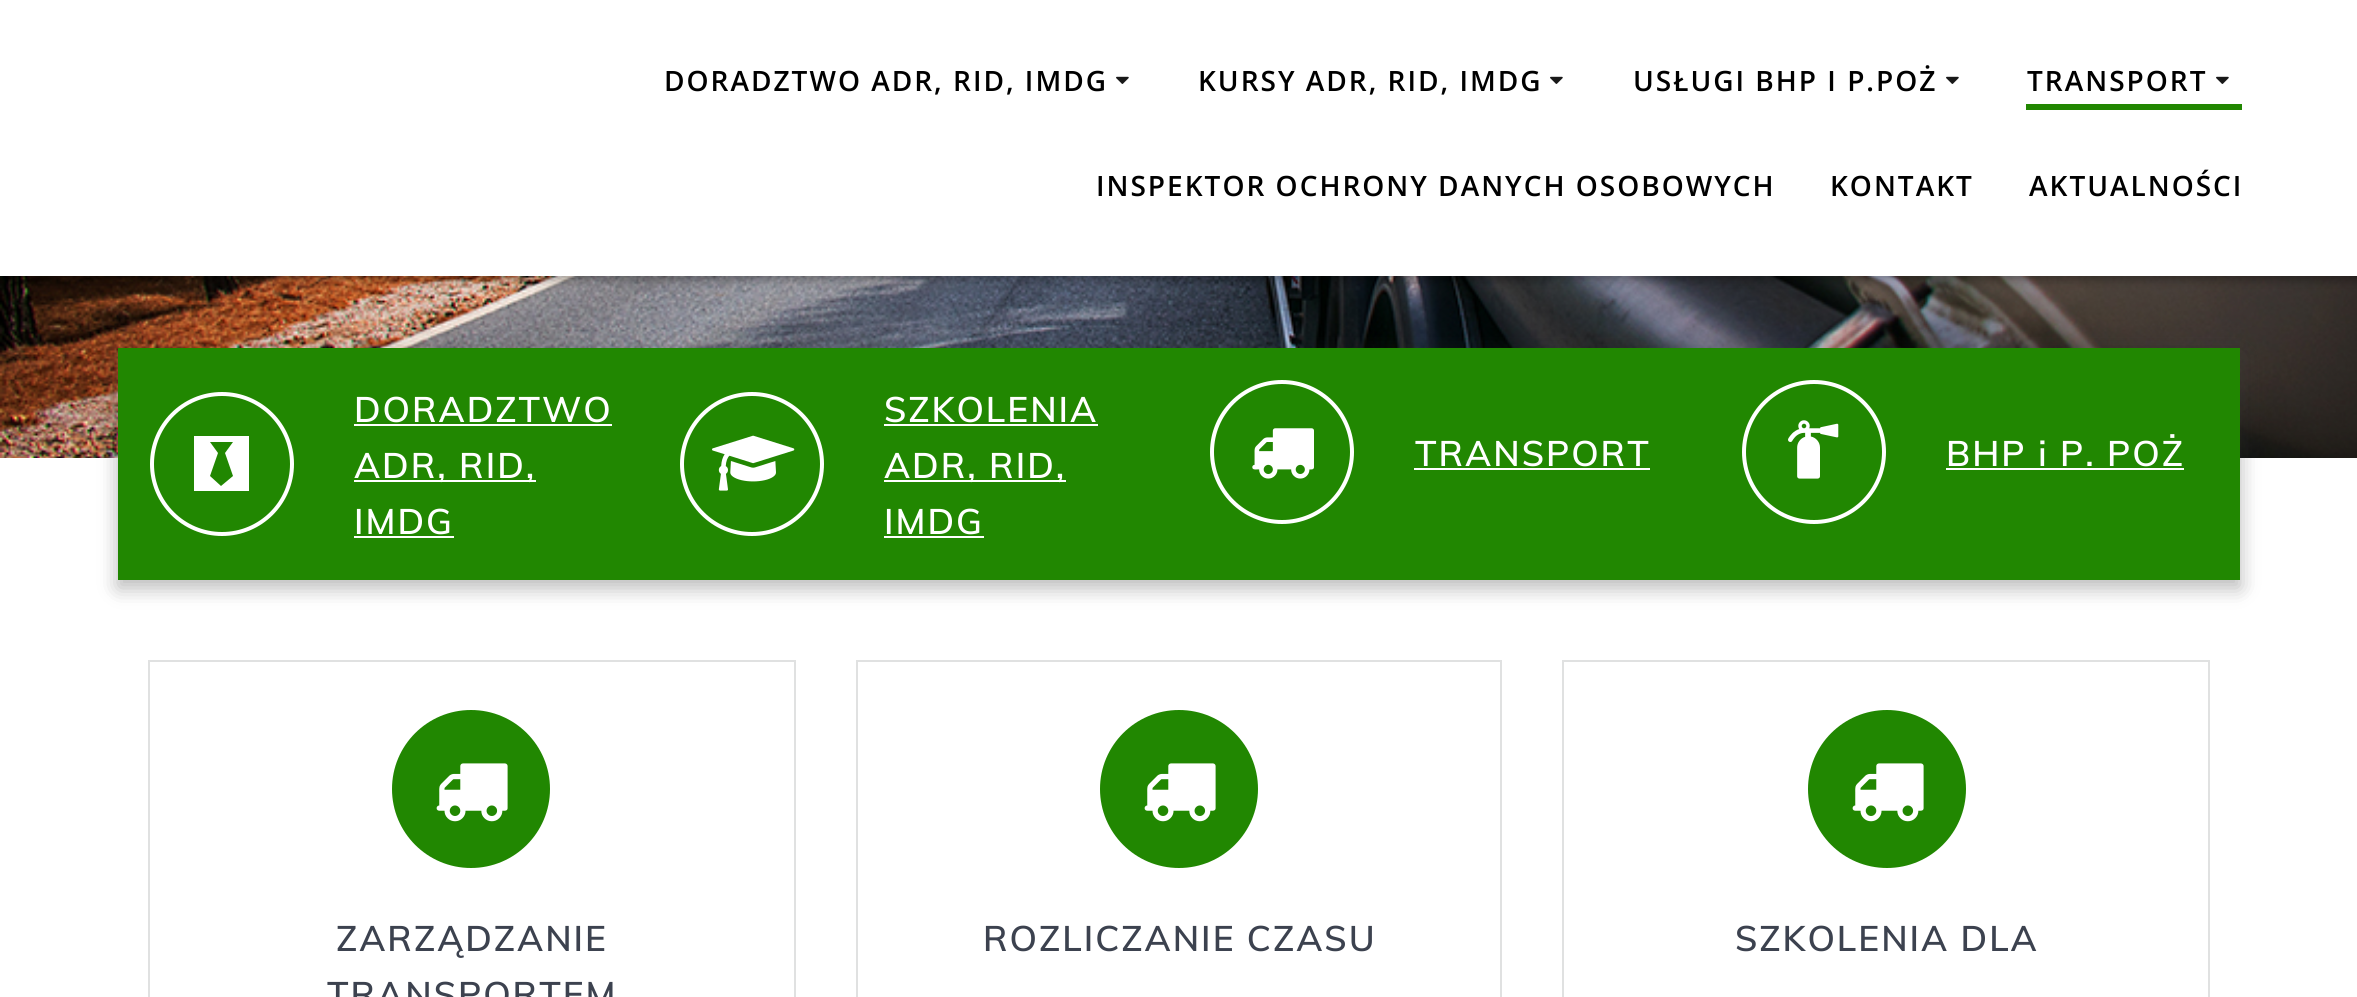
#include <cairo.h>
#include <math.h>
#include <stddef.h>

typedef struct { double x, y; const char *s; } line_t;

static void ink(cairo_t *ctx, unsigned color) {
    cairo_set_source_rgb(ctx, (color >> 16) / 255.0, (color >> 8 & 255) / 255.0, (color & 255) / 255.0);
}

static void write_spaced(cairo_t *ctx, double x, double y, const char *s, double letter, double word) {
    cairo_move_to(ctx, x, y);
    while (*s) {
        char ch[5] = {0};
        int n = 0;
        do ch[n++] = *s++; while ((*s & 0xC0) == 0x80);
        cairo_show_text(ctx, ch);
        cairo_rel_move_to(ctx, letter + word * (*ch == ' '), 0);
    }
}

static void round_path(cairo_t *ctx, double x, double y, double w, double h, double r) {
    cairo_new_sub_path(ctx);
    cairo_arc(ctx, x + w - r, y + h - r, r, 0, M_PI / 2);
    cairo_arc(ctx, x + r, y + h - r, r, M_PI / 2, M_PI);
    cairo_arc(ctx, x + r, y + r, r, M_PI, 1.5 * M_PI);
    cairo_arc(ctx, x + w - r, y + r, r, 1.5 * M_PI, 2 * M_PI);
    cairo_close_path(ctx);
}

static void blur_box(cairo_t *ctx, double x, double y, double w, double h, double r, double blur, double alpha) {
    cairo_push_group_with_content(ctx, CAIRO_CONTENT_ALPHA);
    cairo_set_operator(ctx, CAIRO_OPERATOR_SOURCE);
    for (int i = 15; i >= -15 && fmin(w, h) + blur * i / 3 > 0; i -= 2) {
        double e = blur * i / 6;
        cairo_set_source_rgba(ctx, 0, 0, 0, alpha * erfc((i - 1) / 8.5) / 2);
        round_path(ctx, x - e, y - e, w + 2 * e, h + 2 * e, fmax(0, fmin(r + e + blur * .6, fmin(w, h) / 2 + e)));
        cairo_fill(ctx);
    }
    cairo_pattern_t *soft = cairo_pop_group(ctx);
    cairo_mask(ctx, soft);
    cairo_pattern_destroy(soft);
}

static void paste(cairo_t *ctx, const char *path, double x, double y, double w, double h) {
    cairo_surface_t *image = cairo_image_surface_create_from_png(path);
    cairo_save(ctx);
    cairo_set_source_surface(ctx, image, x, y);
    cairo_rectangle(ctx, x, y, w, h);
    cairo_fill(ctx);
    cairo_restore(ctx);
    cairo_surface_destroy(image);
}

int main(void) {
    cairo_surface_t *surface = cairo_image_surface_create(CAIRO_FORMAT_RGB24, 2357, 997);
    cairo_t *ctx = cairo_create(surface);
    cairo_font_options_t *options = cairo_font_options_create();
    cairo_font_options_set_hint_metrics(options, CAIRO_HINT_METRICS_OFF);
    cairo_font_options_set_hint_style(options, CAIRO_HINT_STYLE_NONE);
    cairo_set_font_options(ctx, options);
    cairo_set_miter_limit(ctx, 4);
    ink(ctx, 0xFFFFFF);
    cairo_paint(ctx);
    paste(ctx, "media/2.png", 0, 276, 2357, 182);
    ink(ctx, 0x000000);
    blur_box(ctx, -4, -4, 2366, 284, 0, 5, 0.33);
    ink(ctx, 0xFFFFFF);
    cairo_rectangle(ctx, 0, 0, 2357, 276);
    cairo_fill(ctx);
    cairo_select_font_face(ctx, "Open Sans SemiBold", CAIRO_FONT_SLANT_NORMAL, CAIRO_FONT_WEIGHT_NORMAL);
    cairo_set_font_size(ctx, 28);
    ink(ctx, 0x000000);
    write_spaced(ctx, 664, 91, "DORADZTWO ADR, RID, IMDG", 2, 0);
    paste(ctx, "media/1.png", 1116, 76, 13, 8);
    write_spaced(ctx, 1198, 91, "KURSY ADR, RID, IMDG", 2, 0);
    paste(ctx, "media/1.png", 1550, 76, 13, 8);
    write_spaced(ctx, 1633, 91, "USŁUGI BHP I P.POŻ", 2, 0);
    paste(ctx, "media/1.png", 1946, 76, 13, 8);
    ink(ctx, 0x218701);
    cairo_rectangle(ctx, 2026, 104, 216, 6);
    cairo_fill(ctx);
    ink(ctx, 0x000000);
    write_spaced(ctx, 2027, 91, "TRANSPORT", 2, 0);
    paste(ctx, "media/1.png", 2216, 76, 13, 8);
    {
        static const line_t items[] = {
            {1096, 196, "INSPEKTOR OCHRONY DANYCH OSOBOWYCH"},
            {1830, 196, "KONTAKT"},
            {2029, 196, "AKTUALNOŚCI"},
        };
        for (size_t i = 0; i < sizeof items / sizeof *items; i++) {
            write_spaced(ctx, items[i].x, items[i].y, items[i].s, 2, 0);
        }
    }
    ink(ctx, 0x000000);
    blur_box(ctx, 118, 356, 2122, 232, 0, 10, 0.08);
    ink(ctx, 0x4A4A4A);
    blur_box(ctx, 118, 356, 2122, 232, 0, 10, 0.3);
    ink(ctx, 0x218701);
    cairo_rectangle(ctx, 118, 348, 2122, 232);
    cairo_fill(ctx);
    cairo_arc(ctx, 222, 464, 70, 0, 2 * M_PI);
    ink(ctx, 0xFFFFFF);
    cairo_set_line_width(ctx, 4);
    cairo_stroke(ctx);
    cairo_new_path(ctx);
    cairo_move_to(ctx, 194, 436);
    cairo_line_to(ctx, 249, 436);
    cairo_line_to(ctx, 249, 491);
    cairo_line_to(ctx, 194, 491);
    cairo_close_path(ctx);
    cairo_move_to(ctx, 233, 476);
    cairo_line_to(ctx, 225, 453);
    cairo_line_to(ctx, 233, 442);
    cairo_line_to(ctx, 210, 442);
    cairo_line_to(ctx, 218, 453);
    cairo_line_to(ctx, 210, 476);
    cairo_line_to(ctx, 221, 486);
    cairo_close_path(ctx);
    cairo_fill(ctx);
    cairo_select_font_face(ctx, "Muli SemiBold", CAIRO_FONT_SLANT_NORMAL, CAIRO_FONT_WEIGHT_NORMAL);
    cairo_set_font_size(ctx, 35.25);
    write_spaced(ctx, 354, 422, "DORADZTWO", 2, 0);
    cairo_rectangle(ctx, 354, 424, 258, 2);
    cairo_fill(ctx);
    cairo_rectangle(ctx, 354, 480, 182, 2);
    cairo_fill(ctx);
    write_spaced(ctx, 354, 478, "ADR, RID,", 2, 0);
    write_spaced(ctx, 354, 534, "IMDG", 2, 0);
    cairo_rectangle(ctx, 354, 536, 100, 2);
    cairo_fill(ctx);
    cairo_arc(ctx, 752, 464, 70, 0, 2 * M_PI);
    cairo_stroke(ctx);
    paste(ctx, "media/3.png", 712, 435, 83, 56);
    write_spaced(ctx, 884, 422, "SZKOLENIA", 2, 0);
    cairo_rectangle(ctx, 884, 424, 214, 2);
    cairo_fill(ctx);
    cairo_rectangle(ctx, 884, 480, 182, 2);
    cairo_fill(ctx);
    write_spaced(ctx, 884, 478, "ADR, RID,", 2, 0);
    write_spaced(ctx, 884, 534, "IMDG", 2, 0);
    cairo_rectangle(ctx, 884, 536, 100, 2);
    cairo_fill(ctx);
    cairo_arc(ctx, 1282, 452, 70, 0, 2 * M_PI);
    cairo_stroke(ctx);
    paste(ctx, "media/4.png", 1252, 428, 62, 51);
    write_spaced(ctx, 1415, 466, "TRANSPORT", 2, 0);
    cairo_rectangle(ctx, 1414, 468, 236, 2);
    cairo_fill(ctx);
    cairo_arc(ctx, 1814, 452, 70, 0, 2 * M_PI);
    cairo_stroke(ctx);
    paste(ctx, "media/5.png", 1788, 420, 51, 59);
    write_spaced(ctx, 1946, 466, "BHP i P. POŻ", 2, 0);
    cairo_rectangle(ctx, 1946, 468, 238, 2);
    cairo_fill(ctx);
    cairo_rectangle(ctx, 149, 661, 646, 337);
    ink(ctx, 0xE0E1E1);
    cairo_set_line_width(ctx, 2);
    cairo_stroke(ctx);
    ink(ctx, 0x218701);
    cairo_arc(ctx, 471, 789, 79, 0, 2 * M_PI);
    cairo_fill(ctx);
    paste(ctx, "media/6.png", 436, 763, 72, 59);
    ink(ctx, 0x3C424F);
    write_spaced(ctx, 336, 951, "ZARZĄDZANIE", 2, 0);
    write_spaced(ctx, 327, 1007, "TRANSPORTEM", 2, 0);
    cairo_rectangle(ctx, 857, 661, 644, 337);
    ink(ctx, 0xE0E1E1);
    cairo_stroke(ctx);
    ink(ctx, 0x218701);
    cairo_arc(ctx, 1179, 789, 79, 0, 2 * M_PI);
    cairo_fill(ctx);
    paste(ctx, "media/6.png", 1144, 763, 72, 59);
    ink(ctx, 0x3C424F);
    write_spaced(ctx, 983, 951, "ROZLICZANIE CZASU", 2, 0);
    cairo_rectangle(ctx, 1563, 661, 646, 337);
    ink(ctx, 0xE0E1E1);
    cairo_stroke(ctx);
    ink(ctx, 0x218701);
    cairo_arc(ctx, 1887, 789, 79, 0, 2 * M_PI);
    cairo_fill(ctx);
    paste(ctx, "media/6.png", 1852, 763, 72, 59);
    ink(ctx, 0x3C424F);
    write_spaced(ctx, 1735, 951, "SZKOLENIA DLA", 2, 0);
    cairo_surface_write_to_png(surface, "image.png");
    cairo_font_options_destroy(options);
    cairo_destroy(ctx);
    cairo_surface_destroy(surface);
    return 0;
}
